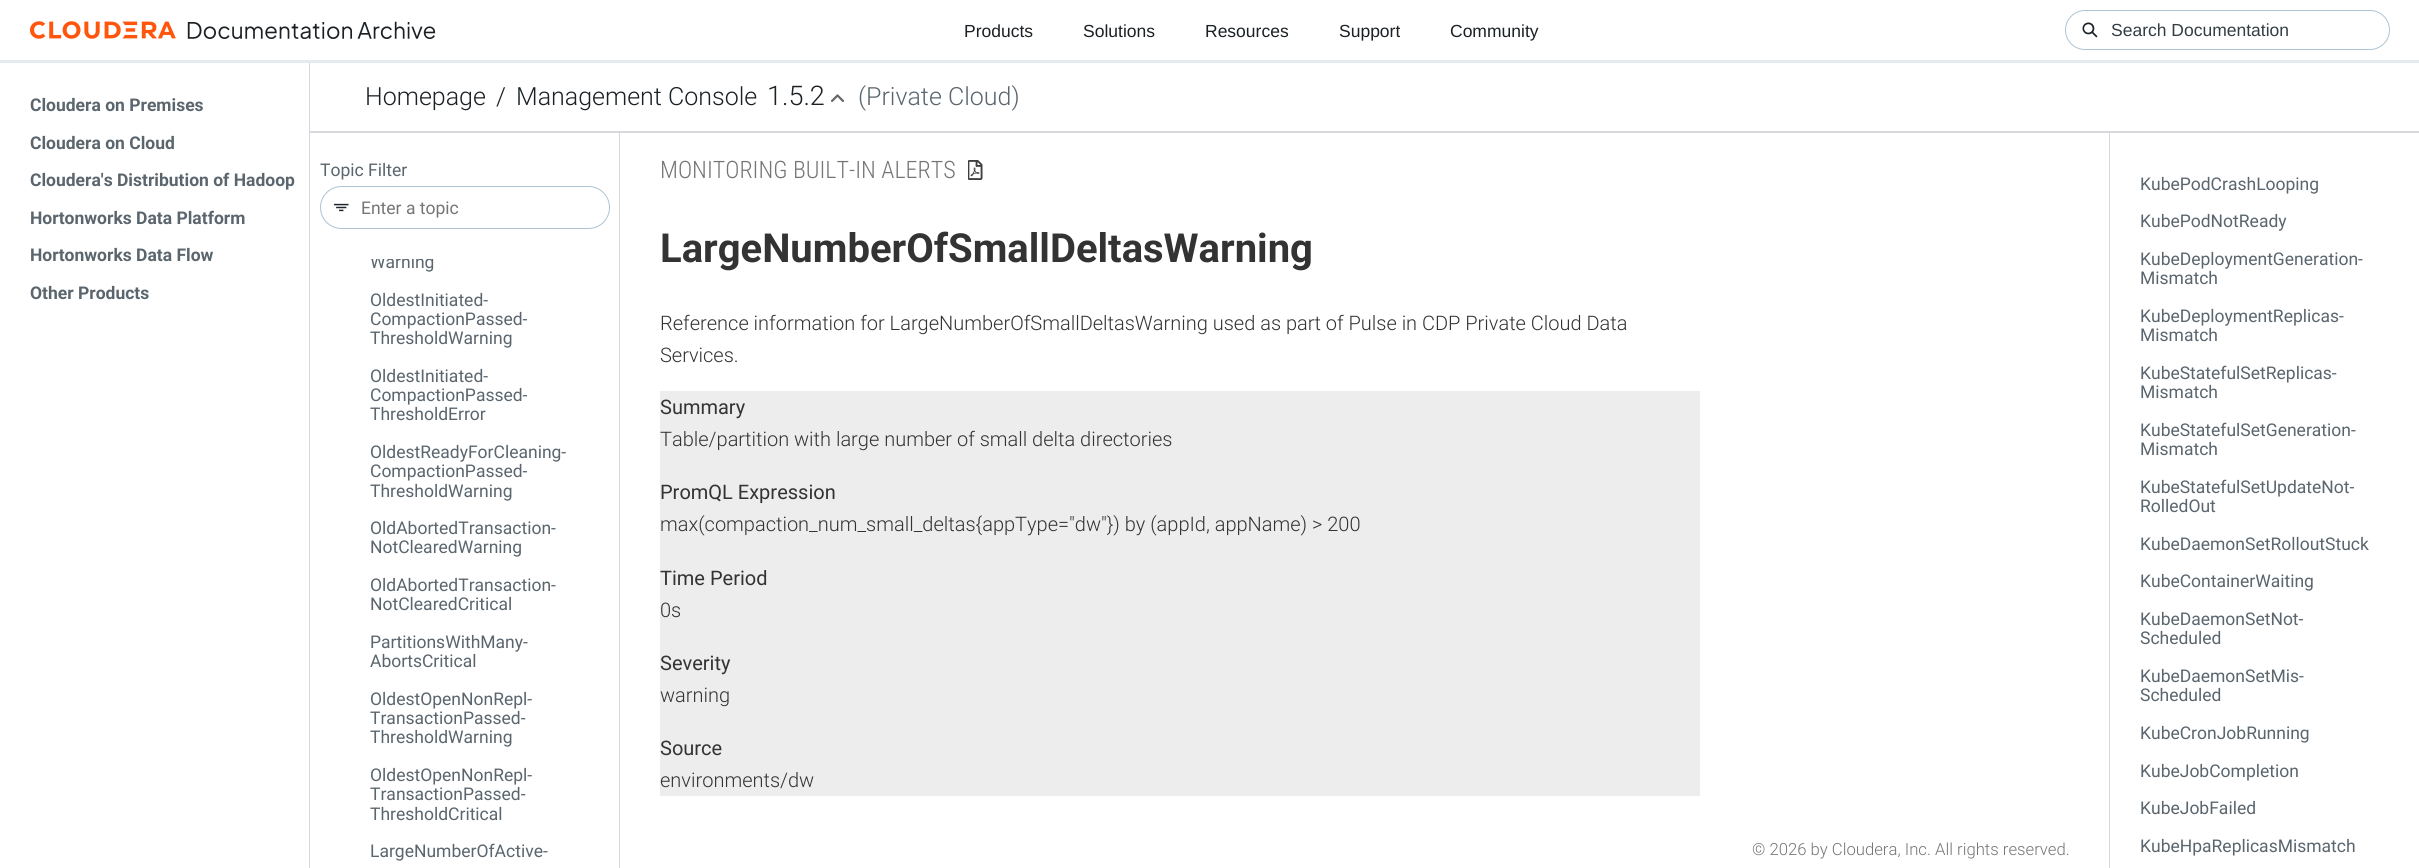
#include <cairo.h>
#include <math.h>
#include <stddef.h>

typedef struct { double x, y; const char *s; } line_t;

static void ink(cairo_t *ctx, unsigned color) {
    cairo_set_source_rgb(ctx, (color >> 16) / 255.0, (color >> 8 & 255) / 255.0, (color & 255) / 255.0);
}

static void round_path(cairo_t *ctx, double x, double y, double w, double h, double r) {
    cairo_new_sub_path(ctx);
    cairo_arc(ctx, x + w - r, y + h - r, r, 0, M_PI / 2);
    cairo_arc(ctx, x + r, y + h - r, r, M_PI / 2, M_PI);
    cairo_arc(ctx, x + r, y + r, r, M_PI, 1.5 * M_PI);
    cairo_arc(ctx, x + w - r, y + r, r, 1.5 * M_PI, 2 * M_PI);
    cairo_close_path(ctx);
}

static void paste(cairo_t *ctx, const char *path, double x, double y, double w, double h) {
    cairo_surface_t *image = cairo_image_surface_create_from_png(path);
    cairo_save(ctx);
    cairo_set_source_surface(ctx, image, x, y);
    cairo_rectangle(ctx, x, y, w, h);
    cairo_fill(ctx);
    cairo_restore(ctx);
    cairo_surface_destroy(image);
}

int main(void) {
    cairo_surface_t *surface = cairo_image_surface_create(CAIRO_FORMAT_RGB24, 2419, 868);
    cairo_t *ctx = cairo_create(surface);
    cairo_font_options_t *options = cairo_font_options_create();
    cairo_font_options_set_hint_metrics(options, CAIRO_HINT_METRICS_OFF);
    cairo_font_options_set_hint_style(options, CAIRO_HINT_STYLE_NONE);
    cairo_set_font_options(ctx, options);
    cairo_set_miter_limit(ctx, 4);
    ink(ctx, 0xFFFFFF);
    cairo_paint(ctx);
    ink(ctx, 0xE5ECF1);
    cairo_rectangle(ctx, 0, 60, 2419, 3);
    cairo_fill(ctx);
    paste(ctx, "media/1.png", 30, 21, 406, 18);
    cairo_select_font_face(ctx, "Liberation Sans", CAIRO_FONT_SLANT_NORMAL, CAIRO_FONT_WEIGHT_NORMAL);
    cairo_set_font_size(ctx, 17.5);
    ink(ctx, 0x1A2024);
    {
        static const line_t items[] = {
            {964, 37, "Products"},
            {1083, 37, "Solutions"},
            {1205, 37, "Resources"},
            {1339, 37, "Support"},
            {1450, 37, "Community"},
        };
        for (size_t i = 0; i < sizeof items / sizeof *items; i++) {
            cairo_move_to(ctx, items[i].x, items[i].y);
            cairo_show_text(ctx, items[i].s);
        }
    }
    round_path(ctx, 2065.5, 10.5, 324, 39, 19.5);
    ink(ctx, 0xAFC4D2);
    cairo_set_line_width(ctx, 1);
    cairo_stroke(ctx);
    paste(ctx, "media/2.png", 2082, 22, 16, 16);
    ink(ctx, 0x333D43);
    cairo_move_to(ctx, 2111, 36);
    cairo_show_text(ctx, "Search Documentation");
    ink(ctx, 0xD6D8DB);
    cairo_rectangle(ctx, 309, 63, 1, 805);
    cairo_fill(ctx);
    cairo_select_font_face(ctx, "Roboto", CAIRO_FONT_SLANT_NORMAL, CAIRO_FONT_WEIGHT_BOLD);
    ink(ctx, 0x5A656D);
    {
        static const line_t items[] = {
            {30, 111, "Cloudera on Premises"},
            {30, 149, "Cloudera on Cloud"},
            {30, 186, "Cloudera's Distribution of Hadoop"},
            {30, 224, "Hortonworks Data Platform"},
            {30, 261, "Hortonworks Data Flow"},
            {30, 299, "Other Products"},
        };
        for (size_t i = 0; i < sizeof items / sizeof *items; i++) {
            cairo_move_to(ctx, items[i].x, items[i].y);
            cairo_show_text(ctx, items[i].s);
        }
    }
    cairo_save(ctx);
    cairo_rectangle(ctx, 310, 131, 310, 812);
    cairo_clip(ctx);
    ink(ctx, 0xD6D8DB);
    cairo_set_fill_rule(ctx, CAIRO_FILL_RULE_EVEN_ODD);
    cairo_new_path(ctx);
    cairo_move_to(ctx, 186, 8);
    cairo_line_to(ctx, 744, 8);
    cairo_line_to(ctx, 744, 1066);
    cairo_line_to(ctx, 186, 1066);
    cairo_close_path(ctx);
    cairo_move_to(ctx, 309, 132);
    cairo_line_to(ctx, 619, 132);
    cairo_line_to(ctx, 619, 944);
    cairo_line_to(ctx, 309, 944);
    cairo_close_path(ctx);
    cairo_fill(ctx);
    cairo_restore(ctx);
    ink(ctx, 0xD6D8DB);
    cairo_rectangle(ctx, 2109, 131, 1, 737);
    cairo_fill(ctx);
    cairo_rectangle(ctx, 310, 131, 2109, 2);
    cairo_fill(ctx);
    cairo_select_font_face(ctx, "Roboto Light", CAIRO_FONT_SLANT_NORMAL, CAIRO_FONT_WEIGHT_NORMAL);
    cairo_set_font_size(ctx, 25);
    ink(ctx, 0x1A2024);
    {
        static const line_t items[] = {
            {365, 105, "Homepage"},
            {496, 105, "/"},
            {516, 105, "Management Console"},
        };
        for (size_t i = 0; i < sizeof items / sizeof *items; i++) {
            cairo_move_to(ctx, items[i].x, items[i].y);
            cairo_show_text(ctx, items[i].s);
        }
    }
    cairo_set_font_size(ctx, 27);
    cairo_move_to(ctx, 767, 105);
    cairo_show_text(ctx, "1.5.2");
    paste(ctx, "media/3.png", 831, 94, 13, 8);
    cairo_set_font_size(ctx, 25);
    ink(ctx, 0x5A656D);
    cairo_move_to(ctx, 858, 105);
    cairo_show_text(ctx, "(Private Cloud)");
    cairo_select_font_face(ctx, "Roboto", CAIRO_FONT_SLANT_NORMAL, CAIRO_FONT_WEIGHT_NORMAL);
    cairo_set_font_size(ctx, 17.5);
    cairo_move_to(ctx, 320, 176);
    cairo_show_text(ctx, "Topic Filter");
    round_path(ctx, 320.5, 186.5, 289, 42, 21);
    ink(ctx, 0xAFC4D2);
    cairo_stroke(ctx);
    paste(ctx, "media/4.png", 333, 203, 16, 9);
    ink(ctx, 0x757575);
    cairo_move_to(ctx, 361, 214);
    cairo_show_text(ctx, "Enter a topic");
    cairo_save(ctx);
    cairo_rectangle(ctx, 310, 259, 310, 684);
    cairo_clip(ctx);
    ink(ctx, 0x5A656D);
    cairo_move_to(ctx, 370, 268);
    cairo_show_text(ctx, "Warning");
    cairo_restore(ctx);
    ink(ctx, 0x5A656D);
    {
        static const line_t items[] = {
            {370, 306, "OldestInitiated-"},
            {370, 325, "CompactionPassed-"},
            {370, 344, "ThresholdWarning"},
            {370, 382, "OldestInitiated-"},
            {370, 401, "CompactionPassed-"},
            {370, 420, "ThresholdError"},
            {370, 458, "OldestReadyForCleaning-"},
            {370, 477, "CompactionPassed-"},
            {370, 497, "ThresholdWarning"},
            {370, 534, "OldAbortedTransaction-"},
            {370, 553, "NotClearedWarning"},
            {370, 591, "OldAbortedTransaction-"},
            {370, 610, "NotClearedCritical"},
            {370, 648, "PartitionsWithMany-"},
            {370, 667, "AbortsCritical"},
            {370, 705, "OldestOpenNonRepl-"},
            {370, 724, "TransactionPassed-"},
            {370, 743, "ThresholdWarning"},
            {370, 781, "OldestOpenNonRepl-"},
            {370, 800, "TransactionPassed-"},
            {370, 820, "ThresholdCritical"},
            {370, 857, "LargeNumberOfActive-"},
        };
        for (size_t i = 0; i < sizeof items / sizeof *items; i++) {
            cairo_move_to(ctx, items[i].x, items[i].y);
            cairo_show_text(ctx, items[i].s);
        }
    }
    cairo_select_font_face(ctx, "Roboto Condensed Light", CAIRO_FONT_SLANT_NORMAL, CAIRO_FONT_WEIGHT_NORMAL);
    cairo_set_font_size(ctx, 24);
    ink(ctx, 0x757575);
    cairo_move_to(ctx, 660, 178);
    cairo_show_text(ctx, "MONITORING BUILT-IN ALERTS");
    paste(ctx, "media/5.png", 968, 160, 15, 20);
    cairo_select_font_face(ctx, "Roboto", CAIRO_FONT_SLANT_NORMAL, CAIRO_FONT_WEIGHT_BOLD);
    cairo_set_font_size(ctx, 40);
    ink(ctx, 0x333333);
    cairo_move_to(ctx, 660, 262);
    cairo_show_text(ctx, "LargeNumberOfSmallDeltasWarning");
    cairo_select_font_face(ctx, "Roboto Light", CAIRO_FONT_SLANT_NORMAL, CAIRO_FONT_WEIGHT_NORMAL);
    cairo_set_font_size(ctx, 20);
    cairo_move_to(ctx, 660, 330);
    cairo_show_text(ctx, "Reference information for LargeNumberOfSmallDeltasWarning used as part of Pulse in CDP Private Cloud Data");
    cairo_move_to(ctx, 660, 362);
    cairo_show_text(ctx, "Services.");
    ink(ctx, 0xEDEDED);
    cairo_rectangle(ctx, 660, 391, 1040, 405);
    cairo_fill(ctx);
    cairo_select_font_face(ctx, "Roboto", CAIRO_FONT_SLANT_NORMAL, CAIRO_FONT_WEIGHT_NORMAL);
    ink(ctx, 0x333333);
    cairo_move_to(ctx, 660, 414);
    cairo_show_text(ctx, "Summary");
    cairo_select_font_face(ctx, "Roboto Light", CAIRO_FONT_SLANT_NORMAL, CAIRO_FONT_WEIGHT_NORMAL);
    cairo_move_to(ctx, 660, 446);
    cairo_show_text(ctx, "Table/partition with large number of small delta directories");
    cairo_select_font_face(ctx, "Roboto", CAIRO_FONT_SLANT_NORMAL, CAIRO_FONT_WEIGHT_NORMAL);
    cairo_move_to(ctx, 660, 499);
    cairo_show_text(ctx, "PromQL Expression");
    cairo_select_font_face(ctx, "Roboto Light", CAIRO_FONT_SLANT_NORMAL, CAIRO_FONT_WEIGHT_NORMAL);
    cairo_move_to(ctx, 660, 531);
    cairo_show_text(ctx, "max(compaction_num_small_deltas{appType=\"dw\"}) by (appId, appName) > 200");
    cairo_select_font_face(ctx, "Roboto", CAIRO_FONT_SLANT_NORMAL, CAIRO_FONT_WEIGHT_NORMAL);
    cairo_move_to(ctx, 660, 585);
    cairo_show_text(ctx, "Time Period");
    cairo_select_font_face(ctx, "Roboto Light", CAIRO_FONT_SLANT_NORMAL, CAIRO_FONT_WEIGHT_NORMAL);
    cairo_move_to(ctx, 660, 617);
    cairo_show_text(ctx, "0s");
    cairo_select_font_face(ctx, "Roboto", CAIRO_FONT_SLANT_NORMAL, CAIRO_FONT_WEIGHT_NORMAL);
    cairo_move_to(ctx, 660, 670);
    cairo_show_text(ctx, "Severity");
    cairo_select_font_face(ctx, "Roboto Light", CAIRO_FONT_SLANT_NORMAL, CAIRO_FONT_WEIGHT_NORMAL);
    cairo_move_to(ctx, 660, 702);
    cairo_show_text(ctx, "warning");
    cairo_select_font_face(ctx, "Roboto", CAIRO_FONT_SLANT_NORMAL, CAIRO_FONT_WEIGHT_NORMAL);
    cairo_move_to(ctx, 660, 755);
    cairo_show_text(ctx, "Source");
    cairo_select_font_face(ctx, "Roboto Light", CAIRO_FONT_SLANT_NORMAL, CAIRO_FONT_WEIGHT_NORMAL);
    cairo_move_to(ctx, 660, 787);
    cairo_show_text(ctx, "environments/dw");
    cairo_set_font_size(ctx, 16.7);
    ink(ctx, 0x757575);
    cairo_move_to(ctx, 1752, 855);
    cairo_show_text(ctx, "© 2026 by Cloudera, Inc. All rights reserved.");
    cairo_select_font_face(ctx, "Roboto", CAIRO_FONT_SLANT_NORMAL, CAIRO_FONT_WEIGHT_NORMAL);
    cairo_set_font_size(ctx, 17.5);
    ink(ctx, 0x5A656D);
    {
        static const line_t items[] = {
            {2140, 190, "KubePodCrashLooping"},
            {2140, 227, "KubePodNotReady"},
            {2140, 265, "KubeDeploymentGeneration-"},
            {2140, 284, "Mismatch"},
            {2140, 322, "KubeDeploymentReplicas-"},
            {2140, 341, "Mismatch"},
            {2140, 379, "KubeStatefulSetReplicas-"},
            {2140, 398, "Mismatch"},
            {2140, 436, "KubeStatefulSetGeneration-"},
            {2140, 455, "Mismatch"},
            {2140, 493, "KubeStatefulSetUpdateNot-"},
            {2140, 512, "RolledOut"},
            {2140, 550, "KubeDaemonSetRolloutStuck"},
            {2140, 587, "KubeContainerWaiting"},
            {2140, 625, "KubeDaemonSetNot-"},
            {2140, 644, "Scheduled"},
            {2140, 682, "KubeDaemonSetMis-"},
            {2140, 701, "Scheduled"},
            {2140, 739, "KubeCronJobRunning"},
            {2140, 777, "KubeJobCompletion"},
            {2140, 814, "KubeJobFailed"},
            {2140, 852, "KubeHpaReplicasMismatch"},
        };
        for (size_t i = 0; i < sizeof items / sizeof *items; i++) {
            cairo_move_to(ctx, items[i].x, items[i].y);
            cairo_show_text(ctx, items[i].s);
        }
    }
    cairo_surface_write_to_png(surface, "image.png");
    cairo_font_options_destroy(options);
    cairo_destroy(ctx);
    cairo_surface_destroy(surface);
    return 0;
}
